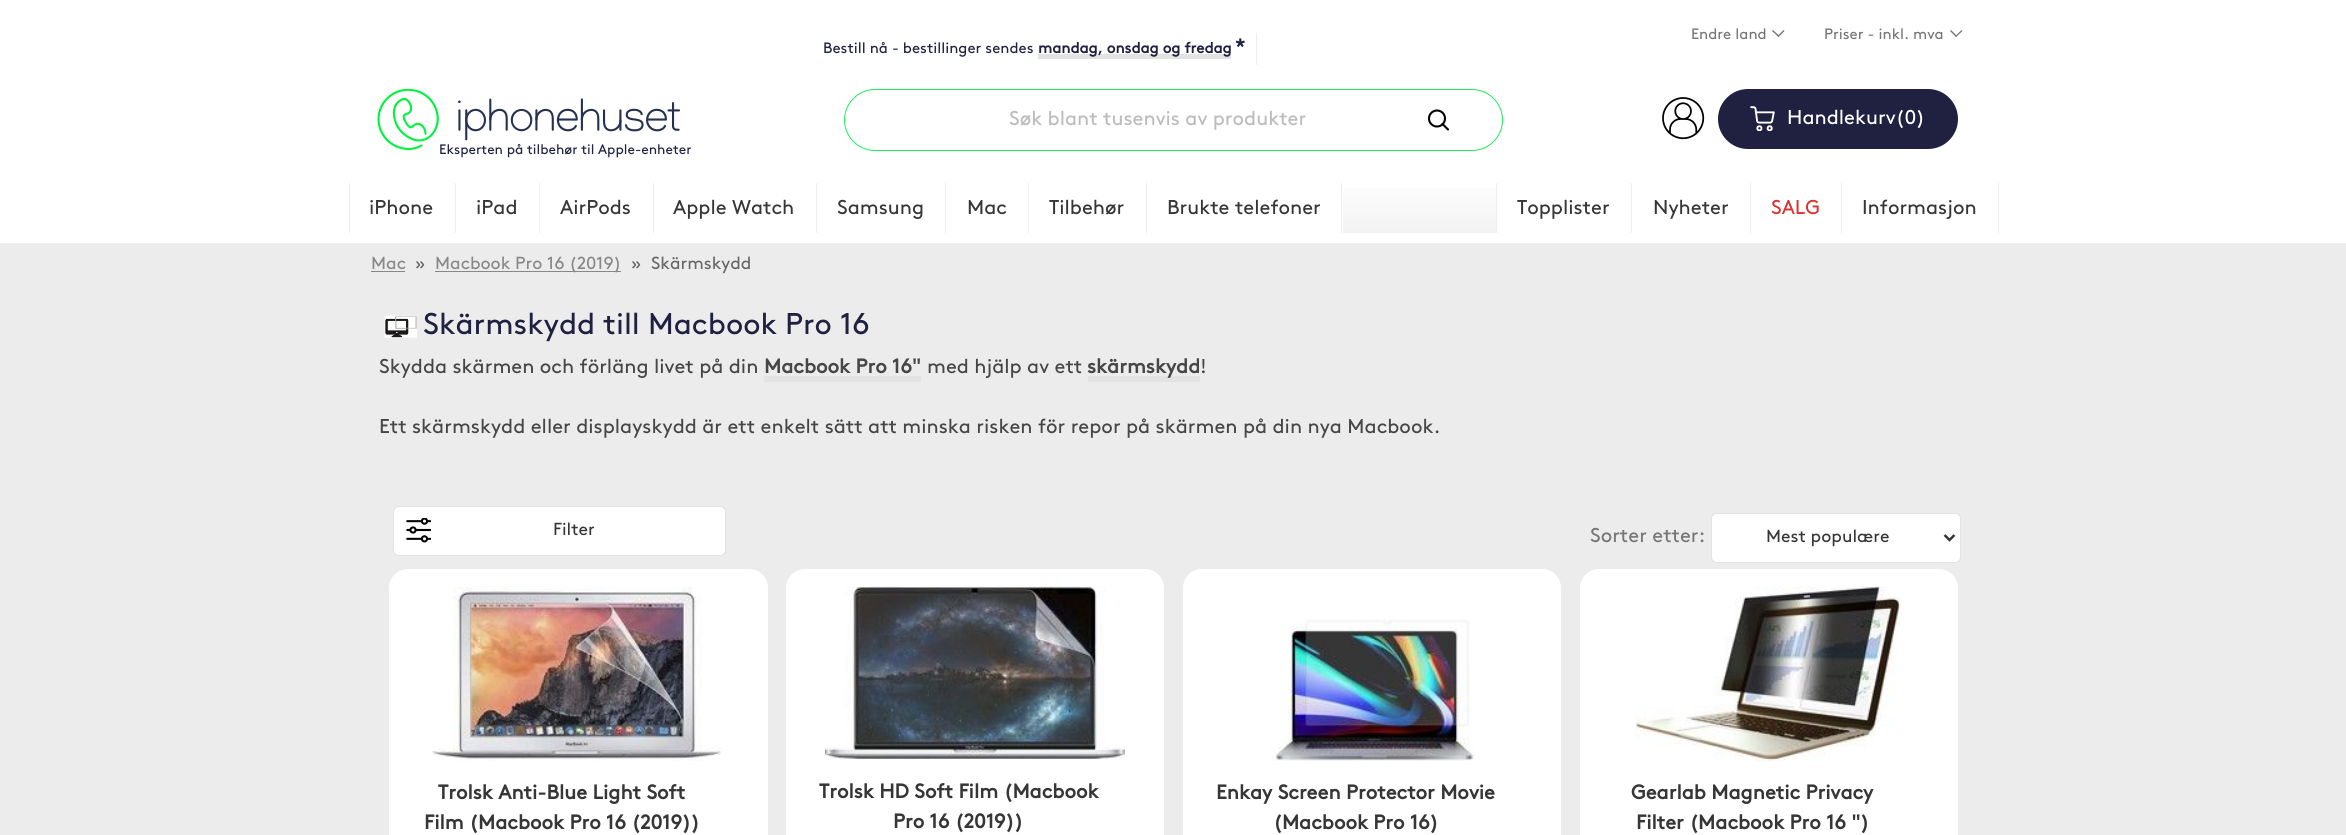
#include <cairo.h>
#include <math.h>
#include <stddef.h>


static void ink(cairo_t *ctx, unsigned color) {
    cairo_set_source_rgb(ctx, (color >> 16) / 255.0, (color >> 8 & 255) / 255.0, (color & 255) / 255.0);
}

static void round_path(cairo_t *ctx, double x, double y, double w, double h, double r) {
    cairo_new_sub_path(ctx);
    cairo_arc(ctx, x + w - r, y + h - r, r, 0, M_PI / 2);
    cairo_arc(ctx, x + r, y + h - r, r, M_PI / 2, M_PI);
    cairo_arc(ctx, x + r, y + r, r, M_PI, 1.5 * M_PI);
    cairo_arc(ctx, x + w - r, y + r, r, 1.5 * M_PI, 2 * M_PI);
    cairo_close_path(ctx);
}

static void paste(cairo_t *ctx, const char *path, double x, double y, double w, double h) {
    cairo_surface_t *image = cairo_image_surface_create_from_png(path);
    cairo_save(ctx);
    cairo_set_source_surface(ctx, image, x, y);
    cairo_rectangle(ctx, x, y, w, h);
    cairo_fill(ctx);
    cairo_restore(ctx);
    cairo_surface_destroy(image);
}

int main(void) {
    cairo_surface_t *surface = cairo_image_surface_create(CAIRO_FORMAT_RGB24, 2346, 835);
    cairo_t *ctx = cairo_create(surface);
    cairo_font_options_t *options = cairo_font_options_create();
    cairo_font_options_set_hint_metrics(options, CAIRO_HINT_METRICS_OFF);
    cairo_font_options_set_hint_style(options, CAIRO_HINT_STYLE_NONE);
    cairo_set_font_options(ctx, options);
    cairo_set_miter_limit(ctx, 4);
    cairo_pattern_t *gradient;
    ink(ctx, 0xECECEC);
    cairo_paint(ctx);
    ink(ctx, 0xFFFFFF);
    cairo_rectangle(ctx, 0, 0, 2346, 243);
    cairo_fill(ctx);
    cairo_select_font_face(ctx, "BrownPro", CAIRO_FONT_SLANT_NORMAL, CAIRO_FONT_WEIGHT_NORMAL);
    cairo_set_font_size(ctx, 15);
    ink(ctx, 0x767676);
    cairo_move_to(ctx, 1691, 39);
    cairo_show_text(ctx, "Endre land");
    cairo_new_path(ctx);
    cairo_move_to(ctx, 1783.5, 30);
    cairo_line_to(ctx, 1784.5, 31);
    cairo_line_to(ctx, 1778.5, 37);
    cairo_line_to(ctx, 1777.5, 36);
    cairo_close_path(ctx);
    cairo_fill(ctx);
    cairo_new_path(ctx);
    cairo_move_to(ctx, 1773, 30);
    cairo_line_to(ctx, 1779.5, 36);
    cairo_line_to(ctx, 1778.5, 37);
    cairo_line_to(ctx, 1772, 31);
    cairo_close_path(ctx);
    cairo_fill(ctx);
    cairo_move_to(ctx, 1824, 39);
    cairo_show_text(ctx, "Priser - inkl. mva");
    cairo_new_path(ctx);
    cairo_move_to(ctx, 1961.5, 30);
    cairo_line_to(ctx, 1962.5, 31);
    cairo_line_to(ctx, 1956, 37);
    cairo_line_to(ctx, 1955.5, 36);
    cairo_close_path(ctx);
    cairo_fill(ctx);
    cairo_new_path(ctx);
    cairo_move_to(ctx, 1951, 30);
    cairo_line_to(ctx, 1957, 36);
    cairo_line_to(ctx, 1956, 37);
    cairo_line_to(ctx, 1950, 31);
    cairo_close_path(ctx);
    cairo_fill(ctx);
    ink(ctx, 0x202141);
    cairo_move_to(ctx, 823, 53);
    cairo_show_text(ctx, "Bestill nå - bestillinger sendes");
    ink(ctx, 0xE3E3E3);
    cairo_rectangle(ctx, 1038, 54, 193, 5);
    cairo_fill(ctx);
    cairo_select_font_face(ctx, "BrownPro", CAIRO_FONT_SLANT_NORMAL, CAIRO_FONT_WEIGHT_BOLD);
    ink(ctx, 0x202141);
    cairo_move_to(ctx, 1038, 53);
    cairo_show_text(ctx, "mandag, onsdag og fredag");
    cairo_set_font_size(ctx, 20);
    cairo_move_to(ctx, 1235, 53);
    cairo_show_text(ctx, "*");
    ink(ctx, 0xEEEEEE);
    cairo_rectangle(ctx, 1256, 33, 1, 32);
    cairo_fill(ctx);
    round_path(ctx, 844.5, 89.5, 658, 61, 30.5);
    ink(ctx, 0x1DED5C);
    cairo_set_line_width(ctx, 1);
    cairo_stroke(ctx);
    cairo_select_font_face(ctx, "BrownPro", CAIRO_FONT_SLANT_NORMAL, CAIRO_FONT_WEIGHT_NORMAL);
    ink(ctx, 0xBCBCBC);
    cairo_move_to(ctx, 1009, 125);
    cairo_show_text(ctx, "Søk blant tusenvis av produkter");
    cairo_new_path(ctx);
    cairo_arc(ctx, 1437, 118.5, 8, 0, 2 * M_PI);
    ink(ctx, 0x000000);
    cairo_set_line_width(ctx, 2.1);
    cairo_stroke(ctx);
    cairo_new_path(ctx);
    cairo_move_to(ctx, 1448, 129.5);
    cairo_line_to(ctx, 1442.5, 124);
    cairo_set_line_cap(ctx, CAIRO_LINE_CAP_ROUND);
    cairo_set_line_join(ctx, CAIRO_LINE_JOIN_ROUND);
    cairo_stroke(ctx);
    paste(ctx, "media/1.png", 1662, 97, 43, 43);
    ink(ctx, 0x202141);
    round_path(ctx, 1718, 89, 240, 60, 30);
    cairo_fill(ctx);
    paste(ctx, "media/2.png", 1750, 106, 25, 25);
    ink(ctx, 0xFFFFFF);
    cairo_move_to(ctx, 1787, 124);
    cairo_show_text(ctx, "Handlekurv(0)");
    paste(ctx, "media/3.png", 377, 89, 303, 61);
    cairo_set_font_size(ctx, 13.75);
    ink(ctx, 0x202141);
    cairo_move_to(ctx, 439, 154);
    cairo_show_text(ctx, "Eksperten på tilbehør til Apple-enheter");
    gradient = cairo_pattern_create_linear(1174, 177, 1174, 233);
    cairo_pattern_add_color_stop_rgba(gradient, 0, 1, 1, 1, 1);
    cairo_pattern_add_color_stop_rgba(gradient, 1, 0.949, 0.949, 0.949, 1);
    cairo_set_source(ctx, gradient);
    cairo_pattern_destroy(gradient);
    cairo_rectangle(ctx, 1343, 188, 153, 45);
    cairo_fill(ctx);
    ink(ctx, 0xEEEEEE);
    cairo_rectangle(ctx, 349, 183, 1, 50);
    cairo_fill(ctx);
    cairo_set_font_size(ctx, 20);
    ink(ctx, 0x363636);
    cairo_move_to(ctx, 369, 214);
    cairo_show_text(ctx, "iPhone");
    ink(ctx, 0xEEEEEE);
    cairo_rectangle(ctx, 455, 183, 1, 50);
    cairo_fill(ctx);
    ink(ctx, 0x363636);
    cairo_move_to(ctx, 476, 214);
    cairo_show_text(ctx, "iPad");
    ink(ctx, 0xEEEEEE);
    cairo_rectangle(ctx, 539, 183, 1, 50);
    cairo_fill(ctx);
    ink(ctx, 0x363636);
    cairo_move_to(ctx, 560, 214);
    cairo_show_text(ctx, "AirPods");
    ink(ctx, 0xEEEEEE);
    cairo_rectangle(ctx, 653, 183, 1, 50);
    cairo_fill(ctx);
    ink(ctx, 0x363636);
    cairo_move_to(ctx, 673, 214);
    cairo_show_text(ctx, "Apple Watch");
    ink(ctx, 0xEEEEEE);
    cairo_rectangle(ctx, 816, 183, 1, 50);
    cairo_fill(ctx);
    ink(ctx, 0x363636);
    cairo_move_to(ctx, 837, 214);
    cairo_show_text(ctx, "Samsung");
    ink(ctx, 0xEEEEEE);
    cairo_rectangle(ctx, 945, 183, 1, 50);
    cairo_fill(ctx);
    ink(ctx, 0x363636);
    cairo_move_to(ctx, 967, 214);
    cairo_show_text(ctx, "Mac");
    ink(ctx, 0xEEEEEE);
    cairo_rectangle(ctx, 1028, 183, 1, 50);
    cairo_fill(ctx);
    ink(ctx, 0x363636);
    cairo_move_to(ctx, 1049, 214);
    cairo_show_text(ctx, "Tilbehør");
    ink(ctx, 0xEEEEEE);
    cairo_rectangle(ctx, 1146, 183, 1, 50);
    cairo_fill(ctx);
    ink(ctx, 0x363636);
    cairo_move_to(ctx, 1167, 214);
    cairo_show_text(ctx, "Brukte telefoner");
    ink(ctx, 0xEEEEEE);
    cairo_rectangle(ctx, 1341, 183, 1, 50);
    cairo_fill(ctx);
    cairo_rectangle(ctx, 1496, 183, 1, 50);
    cairo_fill(ctx);
    ink(ctx, 0x363636);
    cairo_move_to(ctx, 1517, 214);
    cairo_show_text(ctx, "Topplister");
    ink(ctx, 0xEEEEEE);
    cairo_rectangle(ctx, 1631, 183, 1, 50);
    cairo_fill(ctx);
    ink(ctx, 0x363636);
    cairo_move_to(ctx, 1653, 214);
    cairo_show_text(ctx, "Nyheter");
    ink(ctx, 0xEEEEEE);
    cairo_rectangle(ctx, 1750, 183, 1, 50);
    cairo_fill(ctx);
    ink(ctx, 0xDB3232);
    cairo_move_to(ctx, 1771, 214);
    cairo_show_text(ctx, "SALG");
    ink(ctx, 0xEEEEEE);
    cairo_rectangle(ctx, 1841, 183, 1, 50);
    cairo_fill(ctx);
    ink(ctx, 0x363636);
    cairo_move_to(ctx, 1862, 214);
    cairo_show_text(ctx, "Informasjon");
    ink(ctx, 0xEEEEEE);
    cairo_rectangle(ctx, 1998, 183, 1, 50);
    cairo_fill(ctx);
    cairo_set_font_size(ctx, 17.5);
    ink(ctx, 0x888888);
    cairo_move_to(ctx, 371, 269);
    cairo_show_text(ctx, "Mac");
    cairo_rectangle(ctx, 371, 271, 34, 1);
    cairo_fill(ctx);
    ink(ctx, 0x666666);
    cairo_move_to(ctx, 415, 269);
    cairo_show_text(ctx, "»");
    ink(ctx, 0x888888);
    cairo_rectangle(ctx, 435, 271, 186, 1);
    cairo_fill(ctx);
    cairo_move_to(ctx, 435, 269);
    cairo_show_text(ctx, "Macbook Pro 16 (2019)");
    ink(ctx, 0x666666);
    cairo_move_to(ctx, 631, 269);
    cairo_show_text(ctx, "»  Skärmskydd");
    paste(ctx, "media/4.png", 384, 315, 33, 23);
    cairo_set_font_size(ctx, 30);
    ink(ctx, 0x202141);
    cairo_move_to(ctx, 423, 334);
    cairo_show_text(ctx, "Skärmskydd till Macbook Pro 16");
    cairo_set_font_size(ctx, 20);
    ink(ctx, 0x464646);
    cairo_move_to(ctx, 379, 373);
    cairo_show_text(ctx, "Skydda skärmen och förläng livet på din");
    cairo_select_font_face(ctx, "BrownPro", CAIRO_FONT_SLANT_NORMAL, CAIRO_FONT_WEIGHT_BOLD);
    cairo_move_to(ctx, 764, 373);
    cairo_show_text(ctx, "Macbook Pro 16\"");
    ink(ctx, 0xE3E3E3);
    cairo_rectangle(ctx, 764, 376, 157, 6);
    cairo_fill(ctx);
    cairo_select_font_face(ctx, "BrownPro", CAIRO_FONT_SLANT_NORMAL, CAIRO_FONT_WEIGHT_NORMAL);
    ink(ctx, 0x464646);
    cairo_move_to(ctx, 927, 373);
    cairo_show_text(ctx, "med hjälp av ett");
    ink(ctx, 0xE3E3E3);
    cairo_rectangle(ctx, 1088, 376, 112, 6);
    cairo_fill(ctx);
    cairo_select_font_face(ctx, "BrownPro", CAIRO_FONT_SLANT_NORMAL, CAIRO_FONT_WEIGHT_BOLD);
    ink(ctx, 0x464646);
    cairo_move_to(ctx, 1087, 373);
    cairo_show_text(ctx, "skärmskydd");
    cairo_select_font_face(ctx, "BrownPro", CAIRO_FONT_SLANT_NORMAL, CAIRO_FONT_WEIGHT_NORMAL);
    cairo_move_to(ctx, 1200, 373);
    cairo_show_text(ctx, "!");
    cairo_move_to(ctx, 379, 433);
    cairo_show_text(ctx, "Ett skärmskydd eller displayskydd är ett enkelt sätt att minska risken för repor på skärmen på din nya Macbook.");
    ink(ctx, 0xFFFFFF);
    round_path(ctx, 393.5, 506.5, 332, 49, 5.5);
    cairo_fill_preserve(ctx);
    ink(ctx, 0xE3E3E3);
    cairo_set_line_width(ctx, 1);
    cairo_set_line_cap(ctx, CAIRO_LINE_CAP_BUTT);
    cairo_set_line_join(ctx, CAIRO_LINE_JOIN_MITER);
    cairo_stroke(ctx);
    paste(ctx, "media/5.png", 406, 518, 25, 25);
    cairo_set_font_size(ctx, 17.5);
    ink(ctx, 0x363636);
    cairo_move_to(ctx, 553, 535);
    cairo_show_text(ctx, "Filter");
    ink(ctx, 0xFFFFFF);
    round_path(ctx, 389, 569, 379, 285, 19);
    cairo_fill(ctx);
    paste(ctx, "media/6.png", 432, 586, 290, 175);
    cairo_select_font_face(ctx, "BrownPro", CAIRO_FONT_SLANT_NORMAL, CAIRO_FONT_WEIGHT_BOLD);
    cairo_set_font_size(ctx, 20);
    ink(ctx, 0x363636);
    cairo_move_to(ctx, 438, 799);
    cairo_show_text(ctx, "Trolsk Anti-Blue Light Soft");
    cairo_move_to(ctx, 424, 829);
    cairo_show_text(ctx, "Film (Macbook Pro 16 (2019))");
    ink(ctx, 0xFFFFFF);
    round_path(ctx, 786, 569, 378, 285, 19);
    cairo_fill(ctx);
    paste(ctx, "media/7.png", 825, 586, 300, 174);
    ink(ctx, 0x363636);
    cairo_move_to(ctx, 819, 798);
    cairo_show_text(ctx, "Trolsk HD Soft Film (Macbook");
    cairo_move_to(ctx, 893, 828);
    cairo_show_text(ctx, "Pro 16 (2019))");
    ink(ctx, 0xFFFFFF);
    round_path(ctx, 1183, 569, 378, 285, 19);
    cairo_fill(ctx);
    paste(ctx, "media/8.png", 1269, 619, 205, 142);
    ink(ctx, 0x363636);
    cairo_move_to(ctx, 1216, 799);
    cairo_show_text(ctx, "Enkay Screen Protector Movie");
    cairo_move_to(ctx, 1273, 829);
    cairo_show_text(ctx, "(Macbook Pro 16)");
    ink(ctx, 0xFFFFFF);
    round_path(ctx, 1580, 569, 378, 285, 19);
    cairo_fill(ctx);
    paste(ctx, "media/9.png", 1635, 586, 267, 176);
    ink(ctx, 0x363636);
    cairo_move_to(ctx, 1631, 799);
    cairo_show_text(ctx, "Gearlab Magnetic Privacy");
    cairo_move_to(ctx, 1636, 829);
    cairo_show_text(ctx, "Filter (Macbook Pro 16 \")");
    cairo_select_font_face(ctx, "BrownPro", CAIRO_FONT_SLANT_NORMAL, CAIRO_FONT_WEIGHT_NORMAL);
    ink(ctx, 0x767676);
    cairo_move_to(ctx, 1590, 542);
    cairo_show_text(ctx, "Sorter etter:");
    ink(ctx, 0xFFFFFF);
    round_path(ctx, 1711.5, 513.5, 249, 49, 5.5);
    cairo_fill_preserve(ctx);
    ink(ctx, 0xE3E3E3);
    cairo_stroke(ctx);
    cairo_new_path(ctx);
    cairo_move_to(ctx, 1944.5, 535);
    cairo_line_to(ctx, 1949.5, 540);
    cairo_line_to(ctx, 1954.5, 535);
    ink(ctx, 0x363636);
    cairo_set_line_width(ctx, 2.5);
    cairo_stroke(ctx);
    cairo_set_font_size(ctx, 17.5);
    cairo_move_to(ctx, 1766, 542);
    cairo_show_text(ctx, "Mest populære");
    cairo_surface_write_to_png(surface, "image.png");
    cairo_font_options_destroy(options);
    cairo_destroy(ctx);
    cairo_surface_destroy(surface);
    return 0;
}
